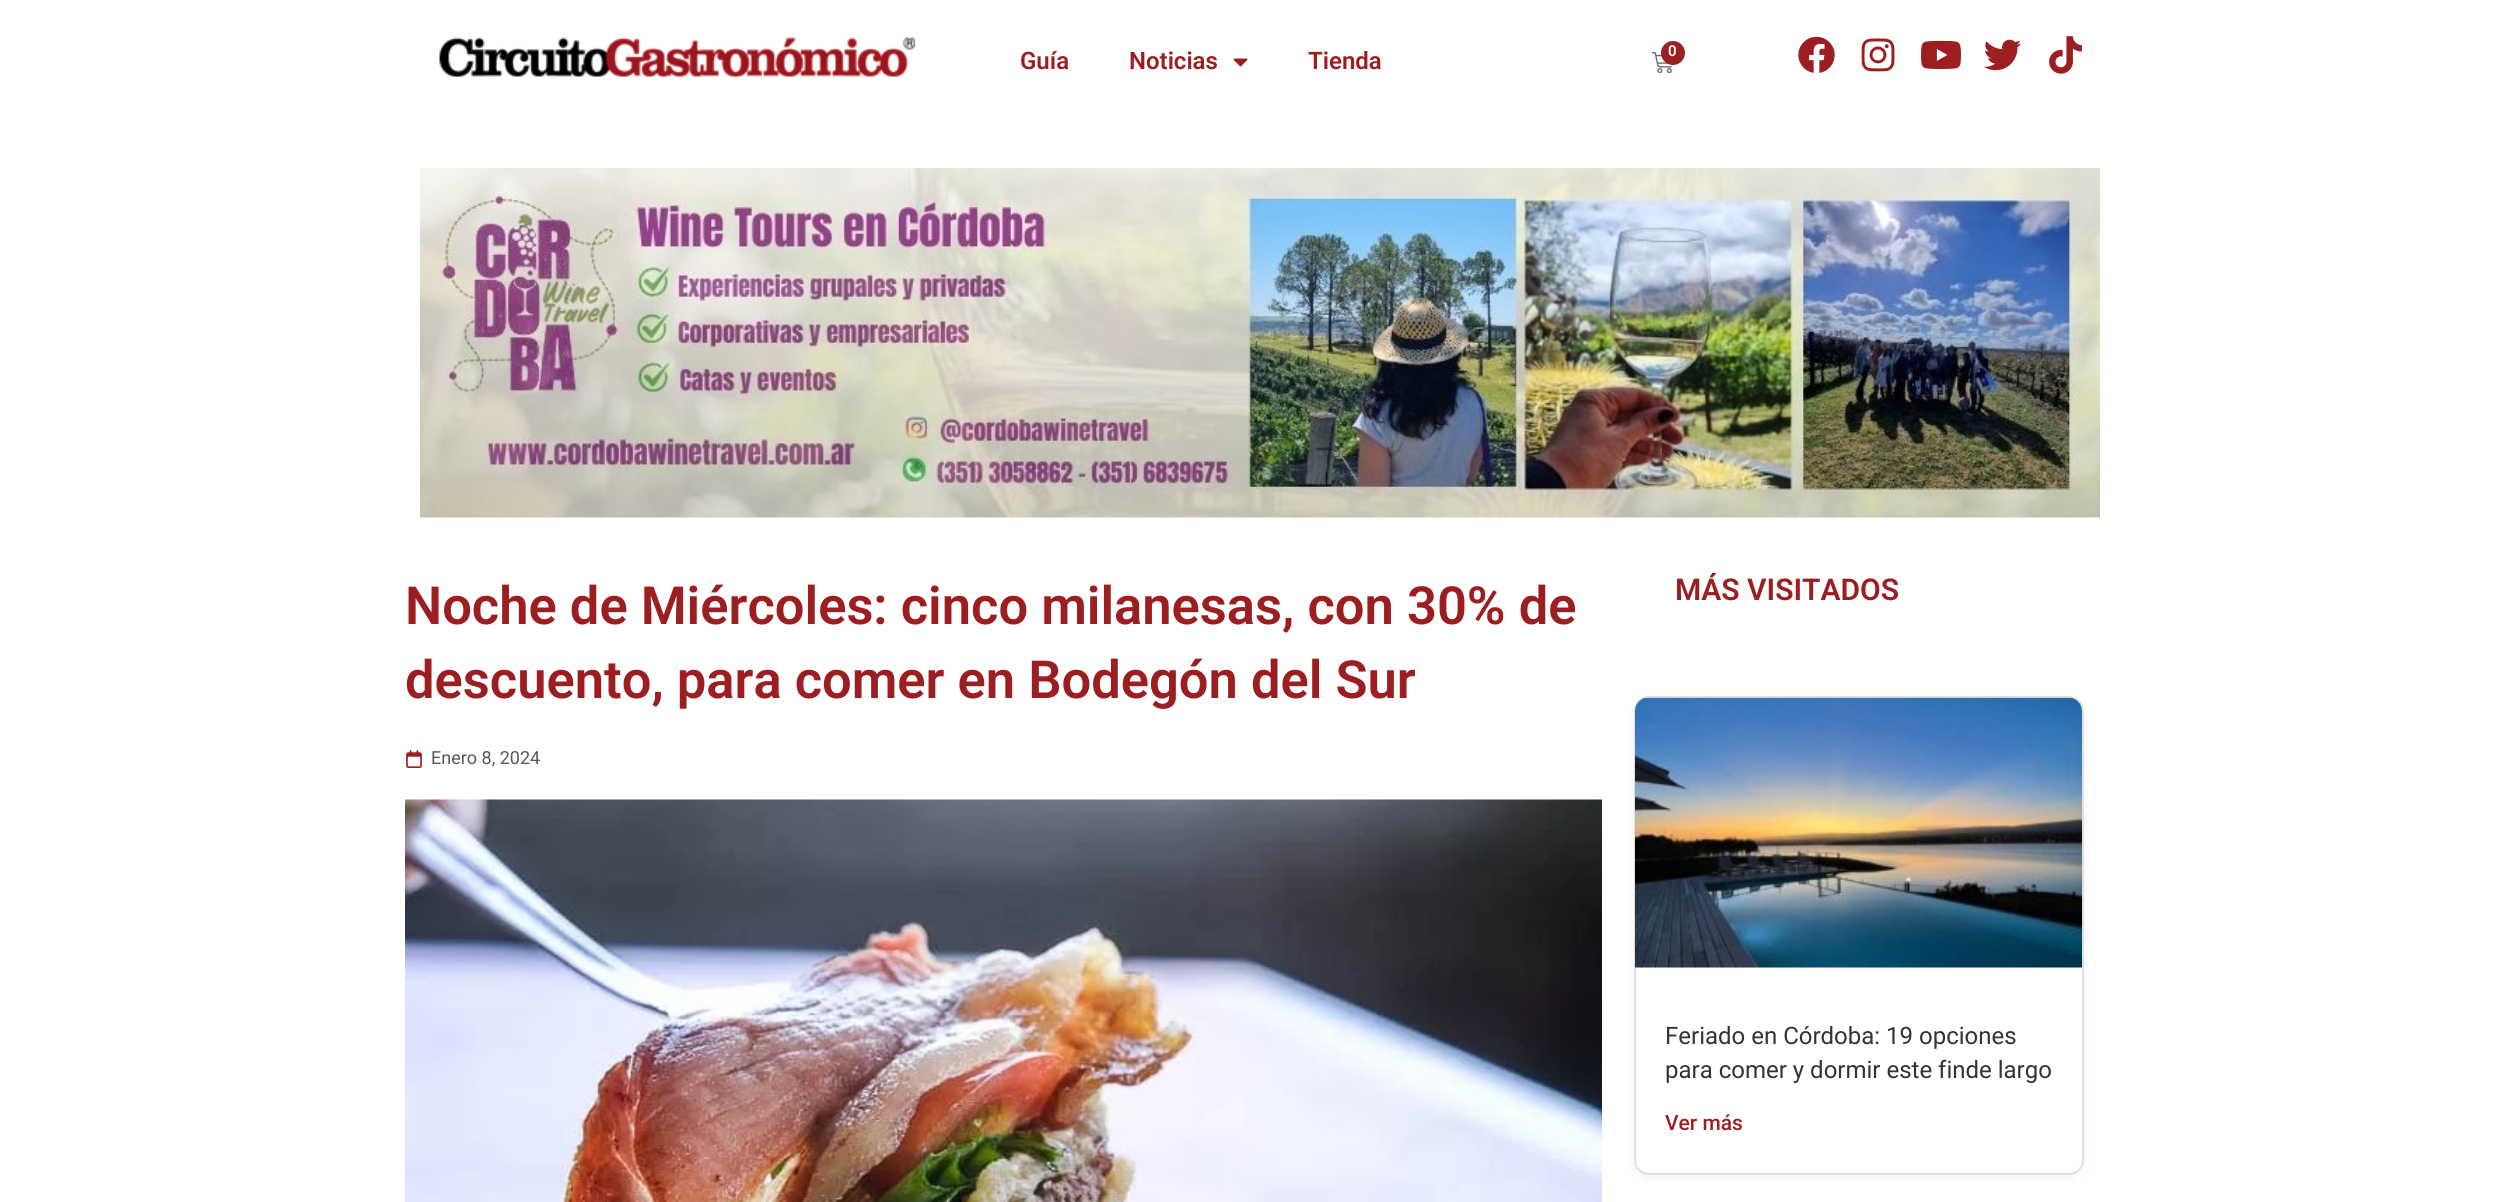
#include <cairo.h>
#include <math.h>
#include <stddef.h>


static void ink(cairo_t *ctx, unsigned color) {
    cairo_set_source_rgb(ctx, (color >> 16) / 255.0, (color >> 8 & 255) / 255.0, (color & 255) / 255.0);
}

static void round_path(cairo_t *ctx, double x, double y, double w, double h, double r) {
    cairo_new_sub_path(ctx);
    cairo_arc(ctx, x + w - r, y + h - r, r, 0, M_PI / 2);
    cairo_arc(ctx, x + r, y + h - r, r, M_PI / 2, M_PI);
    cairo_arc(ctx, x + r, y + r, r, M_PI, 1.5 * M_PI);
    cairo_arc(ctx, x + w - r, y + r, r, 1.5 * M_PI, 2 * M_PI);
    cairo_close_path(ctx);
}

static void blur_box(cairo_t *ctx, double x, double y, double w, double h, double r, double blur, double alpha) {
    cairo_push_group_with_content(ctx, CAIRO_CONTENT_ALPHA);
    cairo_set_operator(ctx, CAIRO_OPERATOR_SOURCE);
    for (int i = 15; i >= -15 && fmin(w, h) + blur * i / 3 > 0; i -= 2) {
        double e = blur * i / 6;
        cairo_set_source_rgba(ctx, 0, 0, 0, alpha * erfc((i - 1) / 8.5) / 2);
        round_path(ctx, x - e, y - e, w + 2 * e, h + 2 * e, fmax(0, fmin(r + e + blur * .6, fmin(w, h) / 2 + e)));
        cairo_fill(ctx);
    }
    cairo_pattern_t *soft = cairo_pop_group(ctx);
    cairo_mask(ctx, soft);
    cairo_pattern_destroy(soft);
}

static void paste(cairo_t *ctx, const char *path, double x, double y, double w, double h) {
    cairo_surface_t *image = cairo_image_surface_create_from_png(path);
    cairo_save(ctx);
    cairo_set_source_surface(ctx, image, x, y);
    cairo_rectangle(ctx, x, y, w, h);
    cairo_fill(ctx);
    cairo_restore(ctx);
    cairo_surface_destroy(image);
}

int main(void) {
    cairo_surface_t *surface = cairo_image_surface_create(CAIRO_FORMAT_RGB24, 2520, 1202);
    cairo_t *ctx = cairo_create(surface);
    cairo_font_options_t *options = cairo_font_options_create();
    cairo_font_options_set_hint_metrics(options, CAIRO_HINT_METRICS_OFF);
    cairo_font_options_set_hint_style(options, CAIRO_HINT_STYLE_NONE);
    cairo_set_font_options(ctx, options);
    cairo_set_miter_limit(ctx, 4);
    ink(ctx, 0xFFFFFF);
    cairo_paint(ctx);
    paste(ctx, "media/1.png", 439, 37, 477, 40);
    cairo_select_font_face(ctx, "Roboto SemiBold", CAIRO_FONT_SLANT_NORMAL, CAIRO_FONT_WEIGHT_NORMAL);
    cairo_set_font_size(ctx, 24);
    ink(ctx, 0x9C1E21);
    cairo_move_to(ctx, 1020, 69);
    cairo_show_text(ctx, "Guía");
    cairo_move_to(ctx, 1129, 69);
    cairo_show_text(ctx, "Noticias");
    paste(ctx, "media/2.png", 1233, 58, 15, 9);
    cairo_move_to(ctx, 1308, 69);
    cairo_show_text(ctx, "Tienda");
    paste(ctx, "media/3.png", 1651, 52, 21, 22);
    cairo_arc(ctx, 1673, 53, 12, 0, 2 * M_PI);
    cairo_fill(ctx);
    cairo_set_font_size(ctx, 15);
    ink(ctx, 0xFFFFFF);
    cairo_move_to(ctx, 1668, 56);
    cairo_show_text(ctx, "0");
    paste(ctx, "media/4.png", 1798, 36, 37, 37);
    paste(ctx, "media/5.png", 1861, 38, 34, 34);
    paste(ctx, "media/6.png", 1921, 40, 40, 29);
    paste(ctx, "media/7.png", 1984, 39, 38, 32);
    paste(ctx, "media/8.png", 2049, 36, 33, 38);
    paste(ctx, "media/9.png", 420, 168, 1680, 350);
    cairo_set_font_size(ctx, 52.5);
    ink(ctx, 0x9C1E21);
    cairo_move_to(ctx, 405, 624);
    cairo_show_text(ctx, "Noche de Miércoles: cinco milanesas, con 30% de");
    cairo_move_to(ctx, 405, 698);
    cairo_show_text(ctx, "descuento, para comer en Bodegón del Sur");
    paste(ctx, "media/10.png", 406, 750, 16, 18);
    cairo_select_font_face(ctx, "Roboto", CAIRO_FONT_SLANT_NORMAL, CAIRO_FONT_WEIGHT_NORMAL);
    cairo_set_font_size(ctx, 18);
    ink(ctx, 0x54595F);
    cairo_move_to(ctx, 431, 764);
    cairo_show_text(ctx, "Enero 8, 2024");
    paste(ctx, "media/11.png", 405, 799, 1197, 403);
    cairo_select_font_face(ctx, "Roboto SemiBold", CAIRO_FONT_SLANT_NORMAL, CAIRO_FONT_WEIGHT_NORMAL);
    cairo_set_font_size(ctx, 30);
    ink(ctx, 0x9C1E21);
    cairo_move_to(ctx, 1675, 600);
    cairo_show_text(ctx, "MÁS VISITADOS");
    ink(ctx, 0x000000);
    blur_box(ctx, 1634, 699, 450, 479, 15, 4, 0.05);
    ink(ctx, 0xFFFFFF);
    round_path(ctx, 1635, 697, 448, 477, 14);
    cairo_fill_preserve(ctx);
    ink(ctx, 0xE0E0E0);
    cairo_stroke(ctx);
    paste(ctx, "media/12.png", 1635, 697, 447, 271);
    cairo_select_font_face(ctx, "Roboto", CAIRO_FONT_SLANT_NORMAL, CAIRO_FONT_WEIGHT_NORMAL);
    cairo_set_font_size(ctx, 24);
    ink(ctx, 0x333333);
    cairo_move_to(ctx, 1665, 1044);
    cairo_show_text(ctx, "Feriado en Córdoba: 19 opciones");
    cairo_move_to(ctx, 1665, 1078);
    cairo_show_text(ctx, "para comer y dormir este finde largo");
    cairo_select_font_face(ctx, "Roboto Medium", CAIRO_FONT_SLANT_NORMAL, CAIRO_FONT_WEIGHT_NORMAL);
    cairo_set_font_size(ctx, 21);
    ink(ctx, 0x9C1E21);
    cairo_move_to(ctx, 1665, 1130);
    cairo_show_text(ctx, "Ver más");
    cairo_surface_write_to_png(surface, "image.png");
    cairo_font_options_destroy(options);
    cairo_destroy(ctx);
    cairo_surface_destroy(surface);
    return 0;
}
